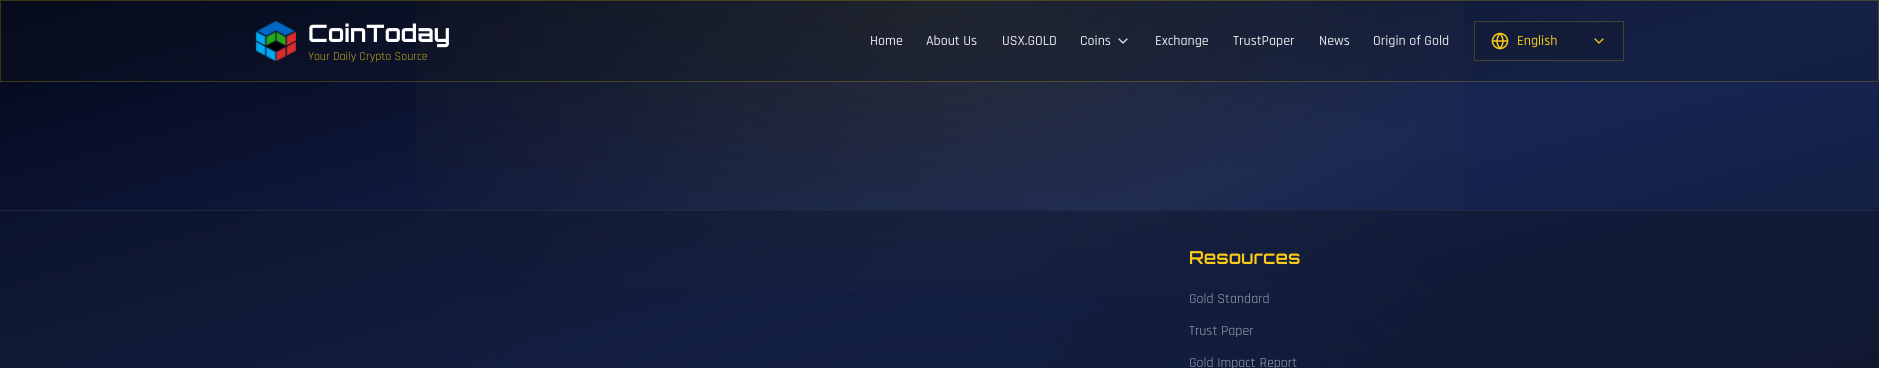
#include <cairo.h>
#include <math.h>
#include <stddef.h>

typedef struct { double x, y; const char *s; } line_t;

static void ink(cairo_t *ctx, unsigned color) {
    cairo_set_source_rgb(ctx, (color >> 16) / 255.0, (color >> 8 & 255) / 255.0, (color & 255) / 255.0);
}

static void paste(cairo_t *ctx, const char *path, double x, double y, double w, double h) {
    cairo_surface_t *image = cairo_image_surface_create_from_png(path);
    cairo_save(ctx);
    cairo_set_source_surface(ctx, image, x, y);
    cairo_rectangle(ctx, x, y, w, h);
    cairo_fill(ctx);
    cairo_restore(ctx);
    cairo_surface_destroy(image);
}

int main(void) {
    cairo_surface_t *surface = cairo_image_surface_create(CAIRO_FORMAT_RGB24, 1879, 368);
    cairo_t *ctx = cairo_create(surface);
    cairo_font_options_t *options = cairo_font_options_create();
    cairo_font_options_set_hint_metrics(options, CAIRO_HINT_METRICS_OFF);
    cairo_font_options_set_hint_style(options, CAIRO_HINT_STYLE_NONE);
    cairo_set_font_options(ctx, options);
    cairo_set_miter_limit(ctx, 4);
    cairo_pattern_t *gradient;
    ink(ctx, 0xFFFFFF);
    cairo_paint(ctx);
    gradient = cairo_pattern_create_linear(804, -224, 1075, 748);
    cairo_pattern_add_color_stop_rgba(gradient, 0, 0.008, 0.024, 0.09, 1);
    cairo_pattern_add_color_stop_rgba(gradient, 0.5, 0.09, 0.145, 0.329, 1);
    cairo_pattern_add_color_stop_rgba(gradient, 1, 0.059, 0.09, 0.165, 1);
    cairo_set_source(ctx, gradient);
    cairo_pattern_destroy(gradient);
    cairo_rectangle(ctx, 0, 0, 1879, 368);
    cairo_fill(ctx);
    gradient = cairo_pattern_create_radial(0, 0, 0, 0, 0, 1);
    cairo_pattern_set_matrix(gradient, &(cairo_matrix_t){1.0 / 1329, 0, 0, 1.0 / 741, -1.0 * 940 / 1329, -1.0 * 524 / 741});
    cairo_pattern_add_color_stop_rgba(gradient, 0, 0.118, 0.227, 0.541, 0.3);
    cairo_pattern_add_color_stop_rgba(gradient, 0.5, 0.118, 0.227, 0.541, 0);
    cairo_set_source(ctx, gradient);
    cairo_pattern_destroy(gradient);
    cairo_rectangle(ctx, 434, 193, 1030, 175);
    cairo_fill(ctx);
    gradient = cairo_pattern_create_radial(0, 0, 0, 0, 0, 1);
    cairo_pattern_set_matrix(gradient, &(cairo_matrix_t){1.0 / 1329, 0, 0, 1.0 / 741, -1.0 * 940 / 1329, -1.0 * 0 / 741});
    cairo_pattern_add_color_stop_rgba(gradient, 0, 1, 0.843, 0, 0.1);
    cairo_pattern_add_color_stop_rgba(gradient, 0.5, 1, 0.843, 0, 0);
    cairo_set_source(ctx, gradient);
    cairo_pattern_destroy(gradient);
    cairo_rectangle(ctx, 416, 0, 1049, 291);
    cairo_fill(ctx);
    cairo_set_source_rgba(ctx, 0.067, 0.094, 0.153, 0.3);
    cairo_rectangle(ctx, 0, 0, 1879, 82);
    cairo_fill(ctx);
    cairo_rectangle(ctx, 0.5, 0.5, 1878, 81);
    cairo_set_source_rgba(ctx, 1, 0.843, 0, 0.2);
    cairo_set_line_width(ctx, 1);
    cairo_stroke(ctx);
    paste(ctx, "media/1.png", 255, 21, 41, 40);
    cairo_select_font_face(ctx, "Orbitron", CAIRO_FONT_SLANT_NORMAL, CAIRO_FONT_WEIGHT_BOLD);
    cairo_set_font_size(ctx, 24);
    ink(ctx, 0xFFFFFF);
    cairo_move_to(ctx, 308, 42);
    cairo_show_text(ctx, "CoinToday");
    cairo_select_font_face(ctx, "Rajdhani", CAIRO_FONT_SLANT_NORMAL, CAIRO_FONT_WEIGHT_NORMAL);
    cairo_set_font_size(ctx, 12);
    ink(ctx, 0xCBA719);
    cairo_move_to(ctx, 308, 60);
    cairo_show_text(ctx, "Your Daily Crypto Source");
    cairo_select_font_face(ctx, "Rajdhani Medium", CAIRO_FONT_SLANT_NORMAL, CAIRO_FONT_WEIGHT_NORMAL);
    cairo_set_font_size(ctx, 14);
    ink(ctx, 0xE5E7EB);
    {
        static const line_t items[] = {
            {870, 45, "Home"},
            {926, 45, "About Us"},
            {1002, 45, "USX.GOLD"},
            {1080, 45, "Coins"},
        };
        for (size_t i = 0; i < sizeof items / sizeof *items; i++) {
            cairo_move_to(ctx, items[i].x, items[i].y);
            cairo_show_text(ctx, items[i].s);
        }
    }
    cairo_new_path(ctx);
    cairo_move_to(ctx, 1119, 39);
    cairo_line_to(ctx, 1123, 43);
    cairo_line_to(ctx, 1127, 39);
    cairo_set_line_width(ctx, 1.3);
    cairo_set_line_cap(ctx, CAIRO_LINE_CAP_ROUND);
    cairo_set_line_join(ctx, CAIRO_LINE_JOIN_ROUND);
    cairo_stroke(ctx);
    {
        static const line_t items[] = {
            {1155, 45, "Exchange"},
            {1233, 45, "TrustPaper"},
            {1319, 45, "News"},
            {1373, 45, "Origin of Gold"},
        };
        for (size_t i = 0; i < sizeof items / sizeof *items; i++) {
            cairo_move_to(ctx, items[i].x, items[i].y);
            cairo_show_text(ctx, items[i].s);
        }
    }
    cairo_set_source_rgba(ctx, 0.067, 0.094, 0.153, 0.3);
    cairo_rectangle(ctx, 1474, 21, 150, 40);
    cairo_fill(ctx);
    cairo_rectangle(ctx, 1474.5, 21.5, 149, 39);
    cairo_set_source_rgba(ctx, 1, 0.843, 0, 0.2);
    cairo_set_line_width(ctx, 1);
    cairo_set_line_cap(ctx, CAIRO_LINE_CAP_BUTT);
    cairo_set_line_join(ctx, CAIRO_LINE_JOIN_MITER);
    cairo_stroke(ctx);
    paste(ctx, "media/2.png", 1491, 32, 18, 18);
    ink(ctx, 0xFACC15);
    cairo_move_to(ctx, 1517, 45);
    cairo_show_text(ctx, "English");
    cairo_new_path(ctx);
    cairo_move_to(ctx, 1595, 39);
    cairo_line_to(ctx, 1599, 43);
    cairo_line_to(ctx, 1603, 39);
    cairo_set_line_width(ctx, 1.3);
    cairo_set_line_cap(ctx, CAIRO_LINE_CAP_ROUND);
    cairo_set_line_join(ctx, CAIRO_LINE_JOIN_ROUND);
    cairo_stroke(ctx);
    cairo_set_source_rgba(ctx, 0.059, 0.09, 0.165, 0.5);
    cairo_rectangle(ctx, 0, 211, 1879, 157);
    cairo_fill(ctx);
    ink(ctx, 0x1E293B);
    cairo_rectangle(ctx, 0, 210, 1879, 1);
    cairo_fill(ctx);
    cairo_select_font_face(ctx, "Orbitron SemiBold", CAIRO_FONT_SLANT_NORMAL, CAIRO_FONT_WEIGHT_NORMAL);
    cairo_set_font_size(ctx, 18);
    ink(ctx, 0xFACC15);
    cairo_move_to(ctx, 1189, 264);
    cairo_show_text(ctx, "Resources");
    cairo_select_font_face(ctx, "Rajdhani", CAIRO_FONT_SLANT_NORMAL, CAIRO_FONT_WEIGHT_NORMAL);
    cairo_set_font_size(ctx, 14);
    ink(ctx, 0x9CA3AF);
    {
        static const line_t items[] = {
            {1189, 303, "Gold Standard"},
            {1189, 335, "Trust Paper"},
            {1189, 367, "Gold Impact Report"},
        };
        for (size_t i = 0; i < sizeof items / sizeof *items; i++) {
            cairo_move_to(ctx, items[i].x, items[i].y);
            cairo_show_text(ctx, items[i].s);
        }
    }
    cairo_surface_write_to_png(surface, "image.png");
    cairo_font_options_destroy(options);
    cairo_destroy(ctx);
    cairo_surface_destroy(surface);
    return 0;
}
